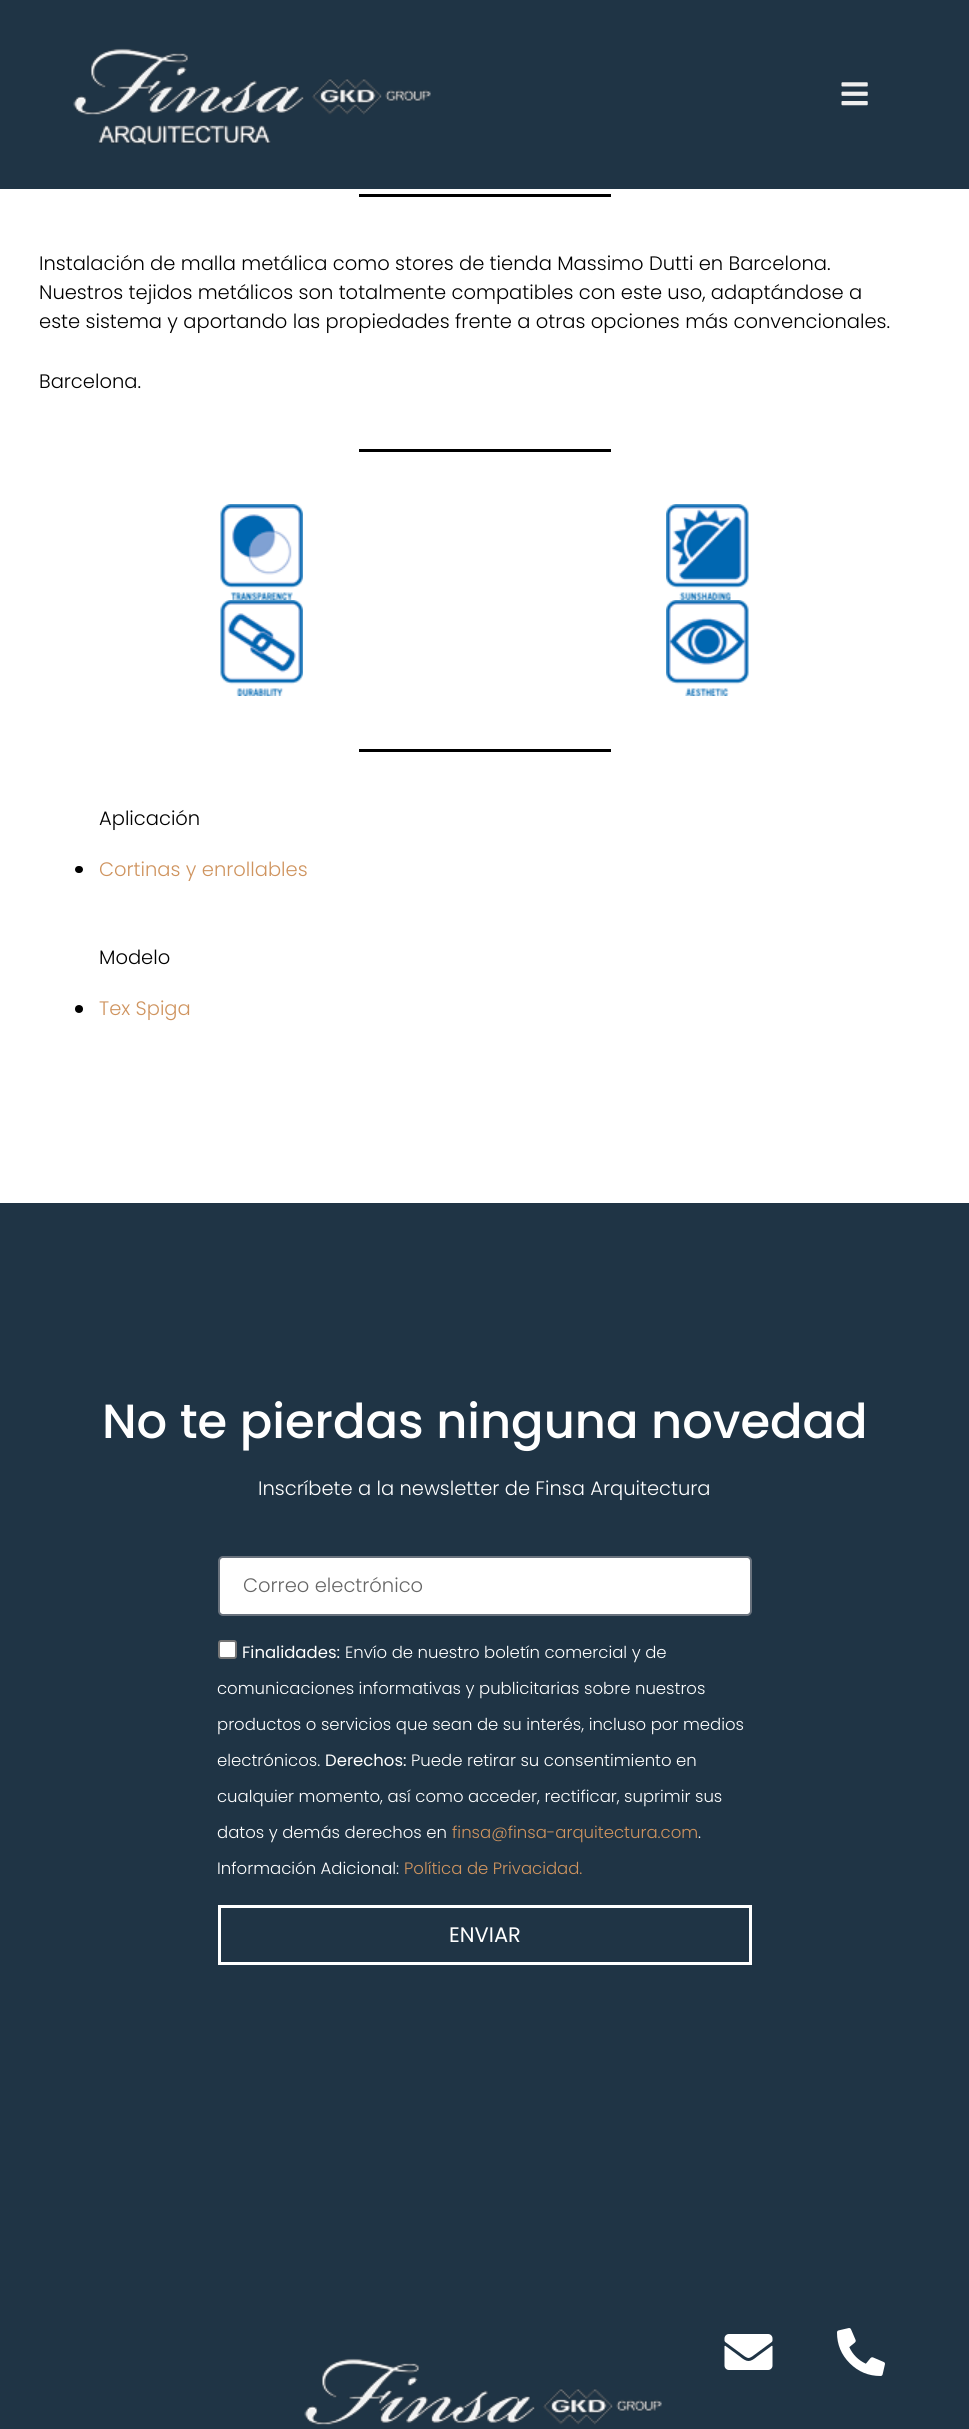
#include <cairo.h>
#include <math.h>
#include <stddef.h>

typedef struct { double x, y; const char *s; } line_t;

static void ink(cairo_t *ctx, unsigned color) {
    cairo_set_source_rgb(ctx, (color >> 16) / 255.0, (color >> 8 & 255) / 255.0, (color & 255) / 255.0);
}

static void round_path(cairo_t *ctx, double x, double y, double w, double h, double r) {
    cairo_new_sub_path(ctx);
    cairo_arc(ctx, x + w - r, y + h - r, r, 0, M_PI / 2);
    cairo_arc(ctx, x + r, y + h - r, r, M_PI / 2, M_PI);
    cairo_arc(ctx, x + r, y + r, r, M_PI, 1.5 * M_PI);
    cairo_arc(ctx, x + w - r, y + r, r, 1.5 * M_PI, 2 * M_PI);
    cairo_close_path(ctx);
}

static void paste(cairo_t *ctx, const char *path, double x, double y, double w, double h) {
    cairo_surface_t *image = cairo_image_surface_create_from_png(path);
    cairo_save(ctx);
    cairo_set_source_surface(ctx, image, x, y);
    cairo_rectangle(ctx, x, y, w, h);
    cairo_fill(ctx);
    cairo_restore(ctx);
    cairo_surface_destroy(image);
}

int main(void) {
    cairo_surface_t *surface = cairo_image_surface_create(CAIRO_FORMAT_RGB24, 969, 2429);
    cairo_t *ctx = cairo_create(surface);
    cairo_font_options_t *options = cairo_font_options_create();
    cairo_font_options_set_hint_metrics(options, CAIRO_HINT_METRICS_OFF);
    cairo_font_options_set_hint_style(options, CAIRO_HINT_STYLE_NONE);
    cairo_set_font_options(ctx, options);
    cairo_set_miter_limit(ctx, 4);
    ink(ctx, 0xFFFFFF);
    cairo_paint(ctx);
    ink(ctx, 0x1F3445);
    cairo_rectangle(ctx, 0, 0, 969, 189);
    cairo_fill(ctx);
    paste(ctx, "media/1.png", 73, 48, 358, 97);
    paste(ctx, "media/2.png", 841, 82, 27, 24);
    ink(ctx, 0x000000);
    cairo_rectangle(ctx, 359, 194, 252, 3);
    cairo_fill(ctx);
    cairo_select_font_face(ctx, "Poppins Light", CAIRO_FONT_SLANT_NORMAL, CAIRO_FONT_WEIGHT_NORMAL);
    cairo_set_font_size(ctx, 19.5);
    {
        static const line_t items[] = {
            {39, 270, "Instalación de malla metálica como stores de tienda Massimo Dutti en Barcelona."},
            {39, 299, "Nuestros tejidos metálicos son totalmente compatibles con este uso, adaptándose a"},
            {39, 328, "este sistema y aportando las propiedades frente a otras opciones más convencionales."},
            {39, 388, "Barcelona."},
        };
        for (size_t i = 0; i < sizeof items / sizeof *items; i++) {
            cairo_move_to(ctx, items[i].x, items[i].y);
            cairo_show_text(ctx, items[i].s);
        }
    }
    cairo_rectangle(ctx, 359, 449, 252, 3);
    cairo_fill(ctx);
    paste(ctx, "media/3.png", 220, 504, 83, 96);
    paste(ctx, "media/4.png", 666, 504, 83, 96);
    paste(ctx, "media/5.png", 220, 600, 83, 96);
    paste(ctx, "media/6.png", 666, 600, 83, 96);
    cairo_rectangle(ctx, 359, 749, 252, 3);
    cairo_fill(ctx);
    cairo_move_to(ctx, 99, 825);
    cairo_show_text(ctx, "Aplicación");
    round_path(ctx, 75, 866, 8, 7, 3.5);
    cairo_fill(ctx);
    ink(ctx, 0xCF945F);
    cairo_move_to(ctx, 99, 876);
    cairo_show_text(ctx, "Cortinas y enrollables");
    ink(ctx, 0x000000);
    cairo_move_to(ctx, 99, 964);
    cairo_show_text(ctx, "Modelo");
    cairo_new_path(ctx);
    cairo_arc(ctx, 79, 1009, 4, 0, 2 * M_PI);
    cairo_fill(ctx);
    ink(ctx, 0xCF945F);
    cairo_move_to(ctx, 99, 1015);
    cairo_show_text(ctx, "Tex Spiga");
    ink(ctx, 0x1F3445);
    cairo_rectangle(ctx, 0, 1203, 969, 1226);
    cairo_fill(ctx);
    cairo_select_font_face(ctx, "Poppins Medium", CAIRO_FONT_SLANT_NORMAL, CAIRO_FONT_WEIGHT_NORMAL);
    cairo_set_font_size(ctx, 48);
    ink(ctx, 0xFFFFFF);
    cairo_move_to(ctx, 102, 1438);
    cairo_show_text(ctx, "No te pierdas ninguna novedad");
    cairo_select_font_face(ctx, "Poppins Light", CAIRO_FONT_SLANT_NORMAL, CAIRO_FONT_WEIGHT_NORMAL);
    cairo_set_font_size(ctx, 19.5);
    cairo_move_to(ctx, 258, 1495);
    cairo_show_text(ctx, "Inscríbete a la newsletter de Finsa Arquitectura");
    round_path(ctx, 219, 1557, 532, 58, 4);
    cairo_fill_preserve(ctx);
    ink(ctx, 0x69727D);
    cairo_stroke(ctx);
    ink(ctx, 0x666666);
    cairo_move_to(ctx, 243, 1592);
    cairo_show_text(ctx, "Correo electrónico");
    ink(ctx, 0xFFFFFF);
    round_path(ctx, 219, 1641, 17, 17, 2);
    cairo_fill_preserve(ctx);
    ink(ctx, 0x767676);
    cairo_stroke(ctx);
    cairo_select_font_face(ctx, "Poppins", CAIRO_FONT_SLANT_NORMAL, CAIRO_FONT_WEIGHT_NORMAL);
    cairo_set_font_size(ctx, 16.5);
    ink(ctx, 0xFFFFFF);
    cairo_move_to(ctx, 242, 1658);
    cairo_show_text(ctx, "Finalidades:");
    cairo_select_font_face(ctx, "Poppins Light", CAIRO_FONT_SLANT_NORMAL, CAIRO_FONT_WEIGHT_NORMAL);
    {
        static const line_t items[] = {
            {345, 1658, "Envío de nuestro boletín comercial y de"},
            {217, 1694, "comunicaciones informativas y publicitarias sobre nuestros"},
            {217, 1730, "productos o servicios que sean de su interés, incluso por medios"},
            {217, 1766, "electrónicos."},
        };
        for (size_t i = 0; i < sizeof items / sizeof *items; i++) {
            cairo_move_to(ctx, items[i].x, items[i].y);
            cairo_show_text(ctx, items[i].s);
        }
    }
    cairo_select_font_face(ctx, "Poppins", CAIRO_FONT_SLANT_NORMAL, CAIRO_FONT_WEIGHT_NORMAL);
    cairo_move_to(ctx, 325, 1766);
    cairo_show_text(ctx, "Derechos:");
    cairo_select_font_face(ctx, "Poppins Light", CAIRO_FONT_SLANT_NORMAL, CAIRO_FONT_WEIGHT_NORMAL);
    {
        static const line_t items[] = {
            {411, 1766, "Puede retirar su consentimiento en"},
            {217, 1802, "cualquier momento, así como acceder, rectificar, suprimir sus"},
            {217, 1838, "datos y demás derechos en"},
        };
        for (size_t i = 0; i < sizeof items / sizeof *items; i++) {
            cairo_move_to(ctx, items[i].x, items[i].y);
            cairo_show_text(ctx, items[i].s);
        }
    }
    ink(ctx, 0xCF945F);
    cairo_move_to(ctx, 452, 1838);
    cairo_show_text(ctx, "finsa@finsa-arquitectura.com");
    ink(ctx, 0xFFFFFF);
    cairo_move_to(ctx, 698, 1838);
    cairo_show_text(ctx, ".");
    cairo_move_to(ctx, 217, 1874);
    cairo_show_text(ctx, "Información Adicional:");
    ink(ctx, 0xCF945F);
    cairo_move_to(ctx, 404, 1874);
    cairo_show_text(ctx, "Política de Privacidad.");
    cairo_rectangle(ctx, 219.5, 1906.5, 531, 57);
    ink(ctx, 0xFFFFFF);
    cairo_set_line_width(ctx, 3);
    cairo_stroke(ctx);
    cairo_select_font_face(ctx, "Poppins", CAIRO_FONT_SLANT_NORMAL, CAIRO_FONT_WEIGHT_NORMAL);
    cairo_set_font_size(ctx, 21);
    cairo_move_to(ctx, 449, 1942);
    cairo_show_text(ctx, "ENVIAR");
    paste(ctx, "media/7.png", 304, 2358, 358, 67);
    paste(ctx, "media/8.png", 724, 2334, 49, 36);
    paste(ctx, "media/9.png", 837, 2328, 48, 48);
    cairo_surface_write_to_png(surface, "image.png");
    cairo_font_options_destroy(options);
    cairo_destroy(ctx);
    cairo_surface_destroy(surface);
    return 0;
}
